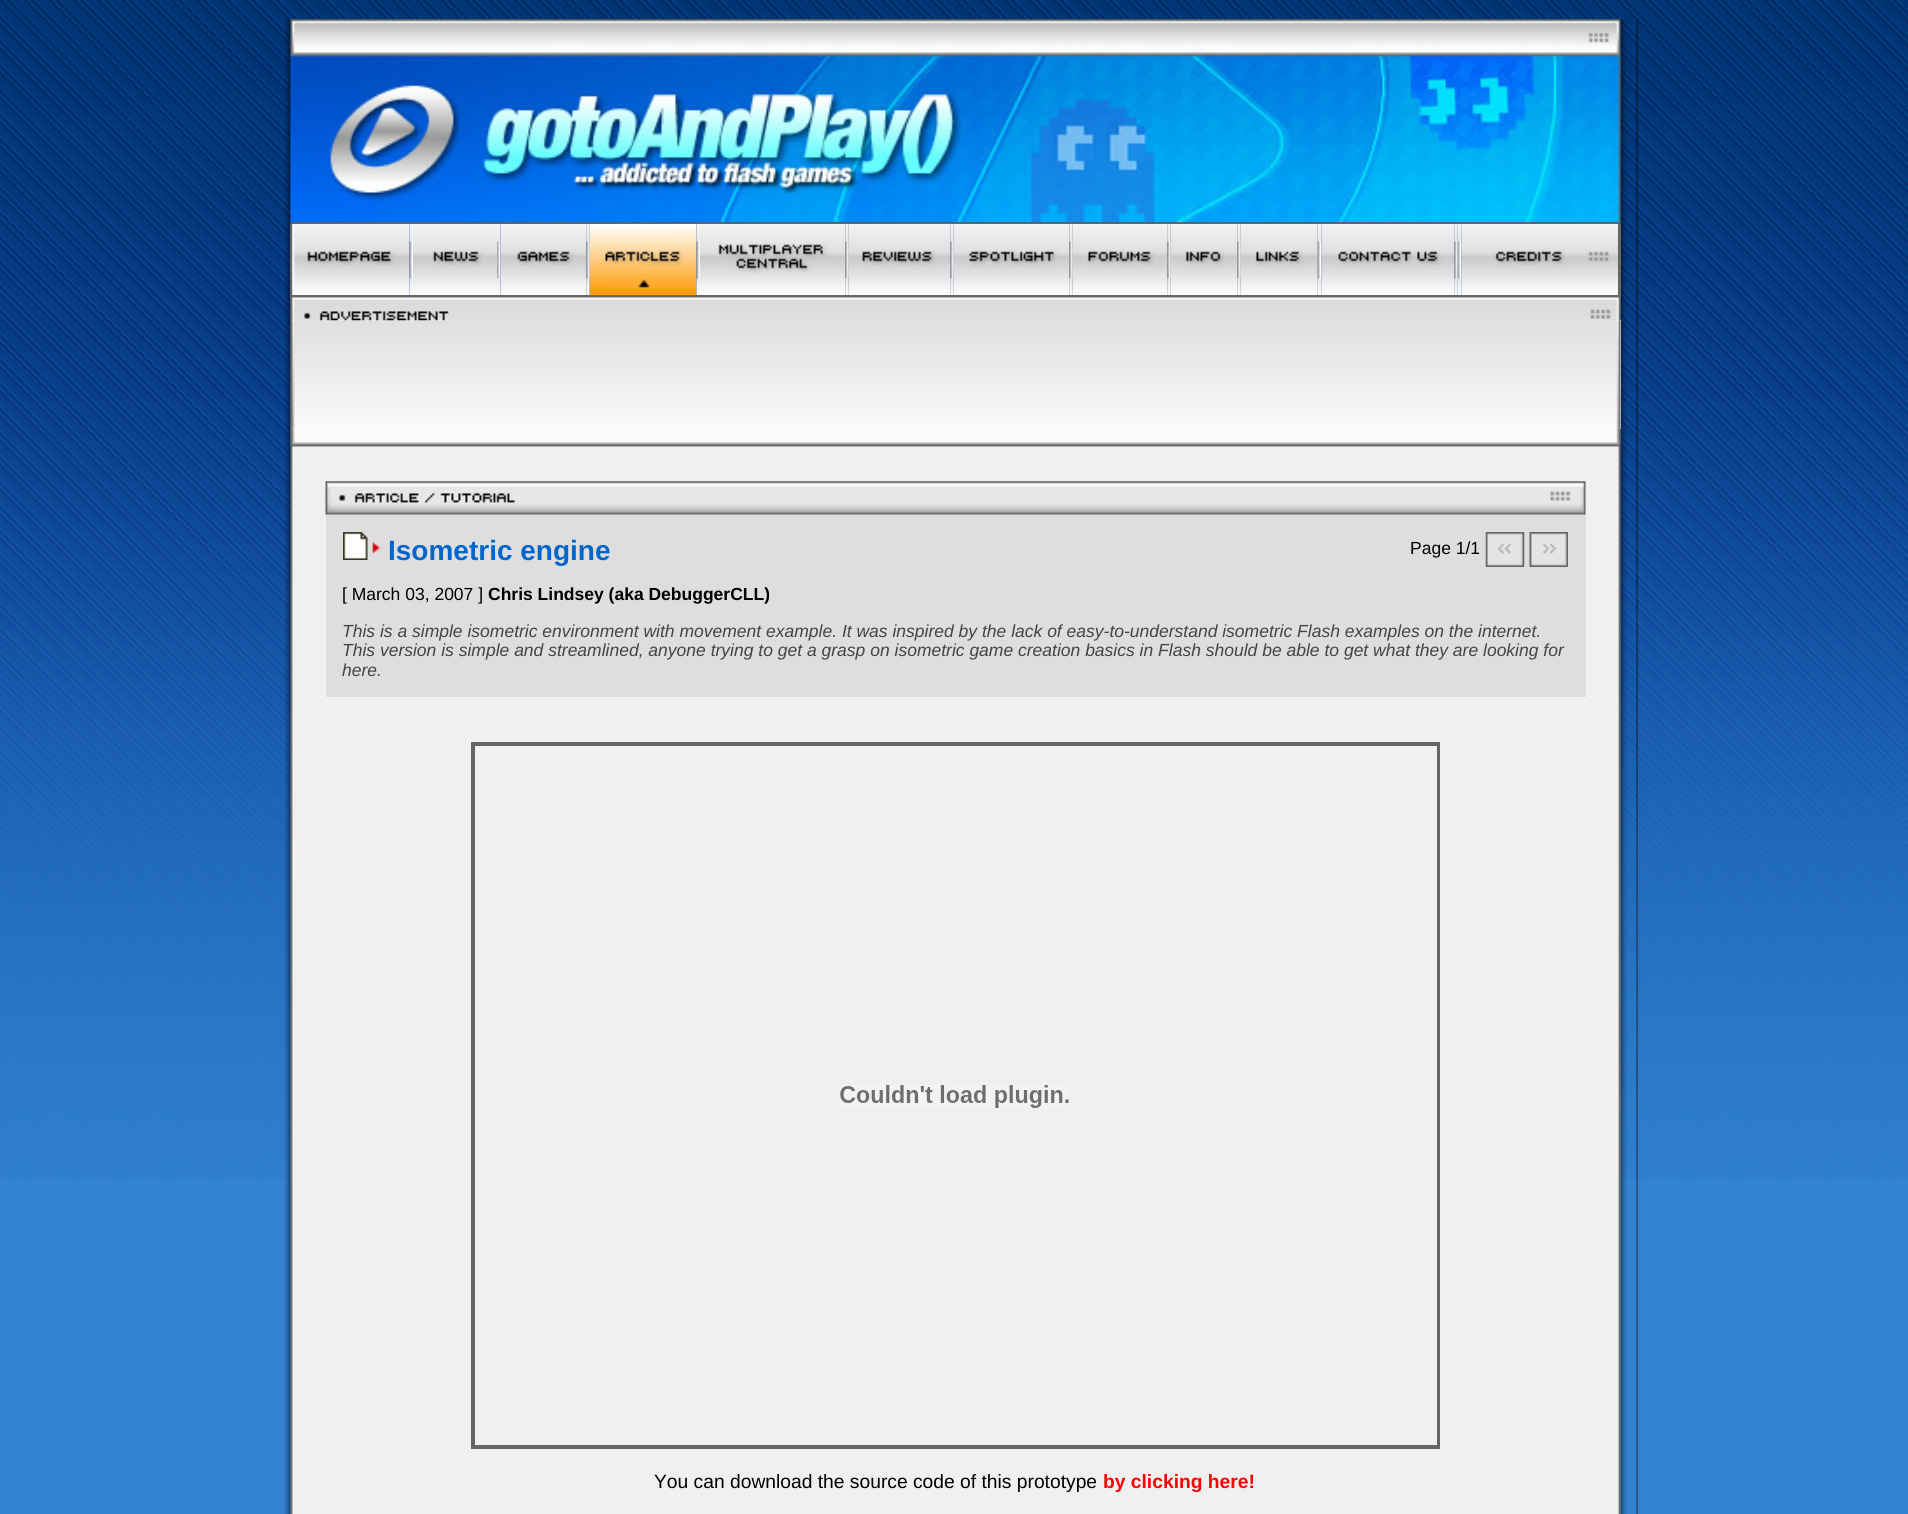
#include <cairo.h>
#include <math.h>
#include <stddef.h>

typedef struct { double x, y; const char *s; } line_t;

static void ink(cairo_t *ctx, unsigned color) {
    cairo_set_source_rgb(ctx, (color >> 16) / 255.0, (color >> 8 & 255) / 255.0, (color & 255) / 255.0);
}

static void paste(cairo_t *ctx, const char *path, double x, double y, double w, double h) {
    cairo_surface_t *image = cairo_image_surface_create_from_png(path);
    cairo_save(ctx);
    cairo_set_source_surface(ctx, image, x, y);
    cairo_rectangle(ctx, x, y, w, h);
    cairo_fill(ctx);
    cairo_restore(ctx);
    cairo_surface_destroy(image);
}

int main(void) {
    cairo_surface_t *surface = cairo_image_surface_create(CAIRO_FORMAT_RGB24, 1908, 1514);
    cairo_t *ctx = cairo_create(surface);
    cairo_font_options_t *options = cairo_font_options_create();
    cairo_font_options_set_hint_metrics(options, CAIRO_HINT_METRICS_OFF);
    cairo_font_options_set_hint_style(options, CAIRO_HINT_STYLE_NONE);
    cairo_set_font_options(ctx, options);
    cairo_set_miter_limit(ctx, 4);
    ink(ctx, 0x3381D1);
    cairo_paint(ctx);
    paste(ctx, "media/1.png", 0, 0, 1908, 1178);
    paste(ctx, "media/2.png", 284, 19, 7, 1495);
    paste(ctx, "media/4.png", 1620, 19, 18, 1495);
    paste(ctx, "media/3.png", 290, 19, 1331, 204);
    paste(ctx, "media/5.png", 290, 222, 1331, 2);
    ink(ctx, 0x676767);
    cairo_rectangle(ctx, 290, 224, 3, 72);
    cairo_fill(ctx);
    paste(ctx, "media/6.png", 292, 224, 118, 71);
    paste(ctx, "media/7.png", 409, 224, 4, 71);
    paste(ctx, "media/8.png", 413, 224, 84, 71);
    paste(ctx, "media/9.png", 497, 224, 4, 71);
    paste(ctx, "media/10.png", 500, 224, 87, 71);
    paste(ctx, "media/11.png", 586, 224, 4, 71);
    paste(ctx, "media/12.png", 589, 224, 108, 71);
    paste(ctx, "media/13.png", 696, 224, 4, 71);
    paste(ctx, "media/14.png", 700, 224, 146, 71);
    paste(ctx, "media/15.png", 845, 224, 4, 71);
    paste(ctx, "media/16.png", 848, 224, 103, 71);
    paste(ctx, "media/17.png", 950, 224, 4, 71);
    paste(ctx, "media/18.png", 953, 224, 117, 71);
    paste(ctx, "media/19.png", 1069, 224, 4, 71);
    paste(ctx, "media/20.png", 1072, 224, 96, 71);
    paste(ctx, "media/19.png", 1167, 224, 4, 71);
    paste(ctx, "media/21.png", 1170, 224, 68, 71);
    paste(ctx, "media/15.png", 1237, 224, 4, 71);
    paste(ctx, "media/22.png", 1240, 224, 78, 71);
    paste(ctx, "media/23.png", 1317, 224, 5, 71);
    paste(ctx, "media/24.png", 1321, 224, 134, 71);
    paste(ctx, "media/25.png", 1454, 224, 4, 71);
    paste(ctx, "media/26.png", 1457, 224, 5, 71);
    paste(ctx, "media/27.png", 1461, 224, 157, 71);
    cairo_rectangle(ctx, 1618, 224, 3, 72);
    cairo_fill(ctx);
    cairo_rectangle(ctx, 290, 295, 1331, 3);
    cairo_fill(ctx);
    paste(ctx, "media/28.png", 290, 298, 1331, 149);
    ink(ctx, 0xFDFDFD);
    cairo_rectangle(ctx, 291, 320, 1330, 109);
    cairo_fill(ctx);
    paste(ctx, "media/30.png", 290, 320, 1331, 109);
    paste(ctx, "media/29.png", 290, 297, 1331, 24);
    paste(ctx, "media/32.png", 290, 446, 1331, 1068);
    paste(ctx, "media/31.png", 290, 428, 1331, 19);
    ink(ctx, 0xDEDEDE);
    cairo_rectangle(ctx, 326, 481, 1260, 216);
    cairo_fill(ctx);
    paste(ctx, "media/33.png", 325, 481, 1261, 34);
    paste(ctx, "media/34.png", 343, 532, 38, 28);
    cairo_select_font_face(ctx, "Liberation Sans", CAIRO_FONT_SLANT_NORMAL, CAIRO_FONT_WEIGHT_BOLD);
    cairo_set_font_size(ctx, 28);
    ink(ctx, 0x0066CC);
    cairo_move_to(ctx, 388, 560);
    cairo_show_text(ctx, "Isometric engine");
    cairo_select_font_face(ctx, "Liberation Sans", CAIRO_FONT_SLANT_NORMAL, CAIRO_FONT_WEIGHT_NORMAL);
    cairo_set_font_size(ctx, 17.5);
    ink(ctx, 0x000000);
    cairo_move_to(ctx, 1410, 554);
    cairo_show_text(ctx, "Page 1/1");
    paste(ctx, "media/35.png", 1485, 532, 40, 35);
    paste(ctx, "media/36.png", 1529, 532, 39, 35);
    cairo_move_to(ctx, 342, 600);
    cairo_show_text(ctx, "[ March 03, 2007 ]");
    cairo_select_font_face(ctx, "Liberation Sans", CAIRO_FONT_SLANT_NORMAL, CAIRO_FONT_WEIGHT_BOLD);
    cairo_move_to(ctx, 488, 600);
    cairo_show_text(ctx, "Chris Lindsey (aka DebuggerCLL)");
    cairo_select_font_face(ctx, "Liberation Sans", CAIRO_FONT_SLANT_ITALIC, CAIRO_FONT_WEIGHT_NORMAL);
    ink(ctx, 0x444444);
    {
        static const line_t items[] = {
            {342, 637, "This is a simple isometric environment with movement example. It was inspired by the lack of easy-to-understand isometric Flash examples on the internet."},
            {342, 656, "This version is simple and streamlined, anyone trying to get a grasp on isometric game creation basics in Flash should be able to get what they are looking for"},
            {342, 676, "here."},
        };
        for (size_t i = 0; i < sizeof items / sizeof *items; i++) {
            cairo_move_to(ctx, items[i].x, items[i].y);
            cairo_show_text(ctx, items[i].s);
        }
    }
    cairo_rectangle(ctx, 472, 743, 967, 705);
    ink(ctx, 0x666666);
    cairo_stroke(ctx);
    cairo_rectangle(ctx, 474, 745, 964, 701);
    cairo_stroke(ctx);
    paste(ctx, "media/37.png", 840, 1085, 229, 23);
    cairo_select_font_face(ctx, "Liberation Sans", CAIRO_FONT_SLANT_NORMAL, CAIRO_FONT_WEIGHT_NORMAL);
    cairo_set_font_size(ctx, 19.25);
    ink(ctx, 0x000000);
    cairo_move_to(ctx, 654, 1488);
    cairo_show_text(ctx, "You can download the source code of this prototype");
    cairo_select_font_face(ctx, "Liberation Sans", CAIRO_FONT_SLANT_NORMAL, CAIRO_FONT_WEIGHT_BOLD);
    ink(ctx, 0xFF0000);
    cairo_move_to(ctx, 1103, 1488);
    cairo_show_text(ctx, "by clicking here!");
    cairo_surface_write_to_png(surface, "image.png");
    cairo_font_options_destroy(options);
    cairo_destroy(ctx);
    cairo_surface_destroy(surface);
    return 0;
}
